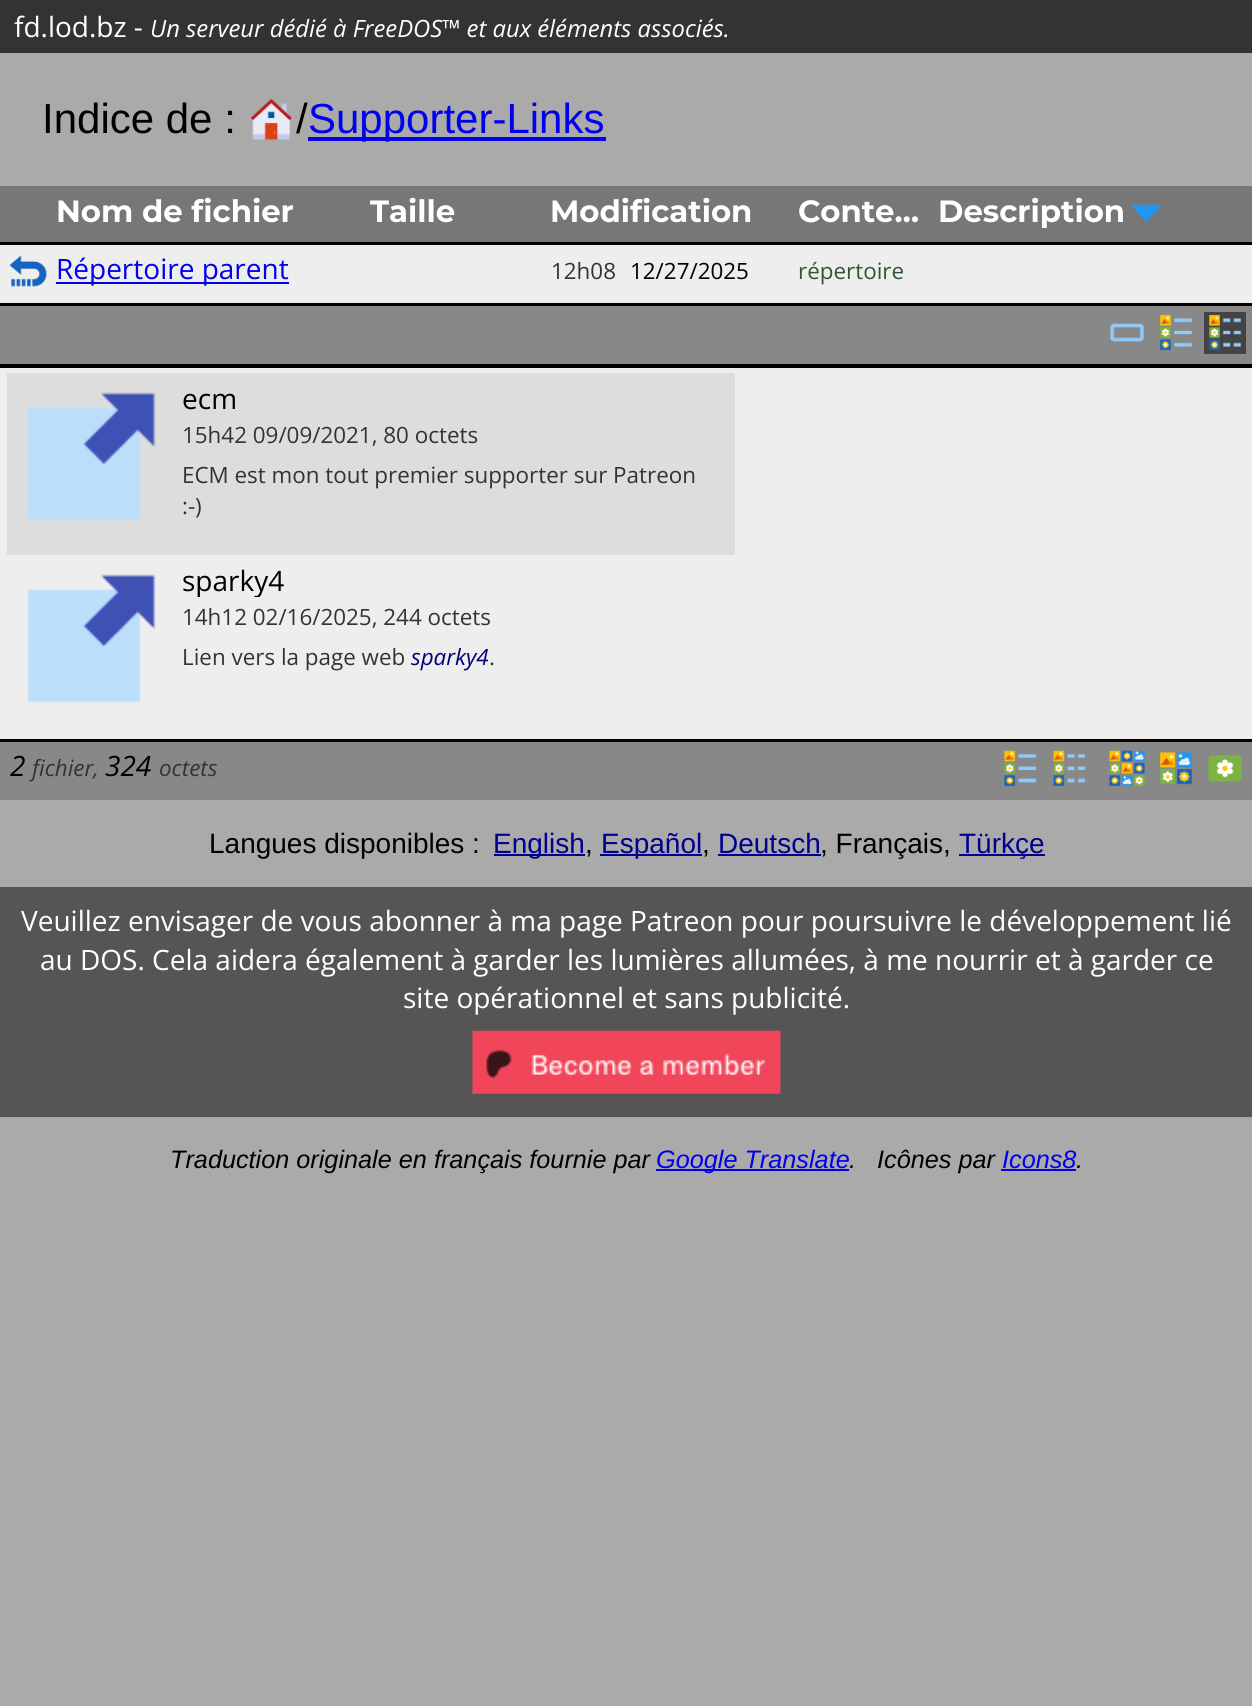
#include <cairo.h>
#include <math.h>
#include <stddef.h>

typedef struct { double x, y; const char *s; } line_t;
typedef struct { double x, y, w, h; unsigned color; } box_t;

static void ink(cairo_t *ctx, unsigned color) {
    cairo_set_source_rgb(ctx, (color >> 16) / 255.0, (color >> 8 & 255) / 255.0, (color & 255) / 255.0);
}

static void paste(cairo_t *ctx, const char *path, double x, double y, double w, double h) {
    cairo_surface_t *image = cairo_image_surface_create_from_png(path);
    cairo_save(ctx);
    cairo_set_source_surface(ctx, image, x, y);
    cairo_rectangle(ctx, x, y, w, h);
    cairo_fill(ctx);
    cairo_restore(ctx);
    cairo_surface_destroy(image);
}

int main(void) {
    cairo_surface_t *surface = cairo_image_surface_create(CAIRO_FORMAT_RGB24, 1252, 1706);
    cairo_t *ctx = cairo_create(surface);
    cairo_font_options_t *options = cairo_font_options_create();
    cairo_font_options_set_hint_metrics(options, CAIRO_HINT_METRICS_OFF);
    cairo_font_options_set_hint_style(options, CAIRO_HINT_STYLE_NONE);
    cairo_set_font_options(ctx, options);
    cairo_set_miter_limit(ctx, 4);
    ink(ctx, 0xAAAAAA);
    cairo_paint(ctx);
    ink(ctx, 0x333333);
    cairo_rectangle(ctx, 0, 0, 1252, 53);
    cairo_fill(ctx);
    cairo_select_font_face(ctx, "Open Sans", CAIRO_FONT_SLANT_NORMAL, CAIRO_FONT_WEIGHT_NORMAL);
    cairo_set_font_size(ctx, 28);
    ink(ctx, 0xFFFFFF);
    cairo_move_to(ctx, 14, 37);
    cairo_show_text(ctx, "fd.lod.bz -");
    cairo_select_font_face(ctx, "Open Sans", CAIRO_FONT_SLANT_ITALIC, CAIRO_FONT_WEIGHT_NORMAL);
    cairo_set_font_size(ctx, 23.8);
    cairo_move_to(ctx, 150, 37);
    cairo_show_text(ctx, "Un serveur dédié à FreeDOS™ et aux éléments associés.");
    cairo_select_font_face(ctx, "Liberation Sans", CAIRO_FONT_SLANT_NORMAL, CAIRO_FONT_WEIGHT_NORMAL);
    cairo_set_font_size(ctx, 42);
    ink(ctx, 0x000000);
    cairo_move_to(ctx, 42, 133);
    cairo_show_text(ctx, "Indice de :");
    paste(ctx, "media/1.png", 250, 98, 42, 42);
    cairo_move_to(ctx, 296, 133);
    cairo_show_text(ctx, "/");
    ink(ctx, 0x0000EE);
    cairo_rectangle(ctx, 308, 137, 298, 4);
    cairo_fill(ctx);
    cairo_move_to(ctx, 308, 133);
    cairo_show_text(ctx, "Supporter-Links");
    ink(ctx, 0x777777);
    cairo_rectangle(ctx, 0, 186, 1252, 56);
    cairo_fill(ctx);
    cairo_select_font_face(ctx, "Montserrat", CAIRO_FONT_SLANT_NORMAL, CAIRO_FONT_WEIGHT_BOLD);
    cairo_set_font_size(ctx, 30.75);
    ink(ctx, 0xFFFFFF);
    {
        static const line_t items[] = {
            {56, 222, "Nom de fichier"},
            {370, 222, "Taille"},
            {550, 222, "Modification"},
            {798, 222, "Conte…"},
            {938, 222, "Description"},
        };
        for (size_t i = 0; i < sizeof items / sizeof *items; i++) {
            cairo_move_to(ctx, items[i].x, items[i].y);
            cairo_show_text(ctx, items[i].s);
        }
    }
    paste(ctx, "media/2.png", 1130, 204, 32, 19);
    ink(ctx, 0x000000);
    cairo_rectangle(ctx, 0, 242, 1252, 3);
    cairo_fill(ctx);
    ink(ctx, 0xEEEEEE);
    cairo_rectangle(ctx, 0, 245, 1252, 58);
    cairo_fill(ctx);
    paste(ctx, "media/3.png", 9, 255, 38, 32);
    ink(ctx, 0x0000EE);
    cairo_rectangle(ctx, 56, 282, 233, 2);
    cairo_fill(ctx);
    cairo_select_font_face(ctx, "Open Sans", CAIRO_FONT_SLANT_NORMAL, CAIRO_FONT_WEIGHT_NORMAL);
    cairo_set_font_size(ctx, 28);
    cairo_move_to(ctx, 56, 279);
    cairo_show_text(ctx, "Répertoire parent");
    cairo_set_font_size(ctx, 22.4);
    ink(ctx, 0x333333);
    cairo_move_to(ctx, 551, 279);
    cairo_show_text(ctx, "12h08");
    ink(ctx, 0x000000);
    cairo_move_to(ctx, 630, 279);
    cairo_show_text(ctx, "12/27/2025");
    ink(ctx, 0x335533);
    cairo_move_to(ctx, 798, 279);
    cairo_show_text(ctx, "répertoire");
    ink(ctx, 0x000000);
    cairo_rectangle(ctx, 0, 303, 1252, 3);
    cairo_fill(ctx);
    ink(ctx, 0x888888);
    cairo_rectangle(ctx, 0, 306, 1252, 58);
    cairo_fill(ctx);
    paste(ctx, "media/4.png", 1110, 323, 34, 19);
    paste(ctx, "media/5.png", 1160, 314, 32, 37);
    ink(ctx, 0x444444);
    cairo_rectangle(ctx, 1204, 312, 42, 42);
    cairo_fill(ctx);
    paste(ctx, "media/6.png", 1209, 314, 32, 37);
    {
        static const box_t items[] = {
            {0, 364, 1252, 4, 0x000000},
            {0, 368, 1252, 371, 0xEEEEEE},
            {7, 373, 728, 182, 0xDDDDDD},
        };
        for (size_t i = 0; i < sizeof items / sizeof *items; i++) {
            ink(ctx, items[i].color);
            cairo_rectangle(ctx, items[i].x, items[i].y, items[i].w, items[i].h);
            cairo_fill(ctx);
        }
    }
    paste(ctx, "media/7.png", 27, 392, 129, 129);
    cairo_set_font_size(ctx, 28);
    ink(ctx, 0x000000);
    cairo_move_to(ctx, 182, 409);
    cairo_show_text(ctx, "ecm");
    cairo_set_font_size(ctx, 22.4);
    ink(ctx, 0x333333);
    {
        static const line_t items[] = {
            {182, 443, "15h42 09/09/2021, 80 octets"},
            {182, 483, "ECM est mon tout premier supporter sur Patreon"},
            {182, 514, ":-)"},
        };
        for (size_t i = 0; i < sizeof items / sizeof *items; i++) {
            cairo_move_to(ctx, items[i].x, items[i].y);
            cairo_show_text(ctx, items[i].s);
        }
    }
    paste(ctx, "media/8.png", 27, 574, 129, 129);
    cairo_save(ctx);
    cairo_rectangle(ctx, 182, 555, 539, 42);
    cairo_clip(ctx);
    cairo_set_font_size(ctx, 28);
    ink(ctx, 0x000000);
    cairo_move_to(ctx, 182, 591);
    cairo_show_text(ctx, "sparky4");
    cairo_restore(ctx);
    cairo_move_to(ctx, 182, 625);
    cairo_show_text(ctx, "14h12 02/16/2025, 244 octets");
    cairo_move_to(ctx, 182, 665);
    cairo_show_text(ctx, "Lien vers la page web");
    cairo_select_font_face(ctx, "Open Sans", CAIRO_FONT_SLANT_ITALIC, CAIRO_FONT_WEIGHT_NORMAL);
    ink(ctx, 0x000077);
    cairo_move_to(ctx, 411, 665);
    cairo_show_text(ctx, "sparky4");
    cairo_select_font_face(ctx, "Open Sans", CAIRO_FONT_SLANT_NORMAL, CAIRO_FONT_WEIGHT_NORMAL);
    ink(ctx, 0x333333);
    cairo_move_to(ctx, 489, 665);
    cairo_show_text(ctx, ".");
    ink(ctx, 0x000000);
    cairo_rectangle(ctx, 0, 739, 1252, 3);
    cairo_fill(ctx);
    ink(ctx, 0x888888);
    cairo_rectangle(ctx, 0, 742, 1252, 58);
    cairo_fill(ctx);
    cairo_select_font_face(ctx, "Open Sans", CAIRO_FONT_SLANT_ITALIC, CAIRO_FONT_WEIGHT_NORMAL);
    cairo_set_font_size(ctx, 28);
    ink(ctx, 0x000000);
    cairo_move_to(ctx, 10, 776);
    cairo_show_text(ctx, "2");
    cairo_set_font_size(ctx, 22.4);
    ink(ctx, 0x333333);
    cairo_move_to(ctx, 32, 776);
    cairo_show_text(ctx, "fichier,");
    cairo_set_font_size(ctx, 28);
    ink(ctx, 0x000000);
    cairo_move_to(ctx, 105, 776);
    cairo_show_text(ctx, "324");
    cairo_set_font_size(ctx, 22.4);
    ink(ctx, 0x333333);
    cairo_move_to(ctx, 159, 776);
    cairo_show_text(ctx, "octets");
    paste(ctx, "media/9.png", 1004, 750, 33, 36);
    paste(ctx, "media/10.png", 1053, 750, 33, 36);
    paste(ctx, "media/11.png", 1109, 750, 36, 36);
    paste(ctx, "media/12.png", 1160, 752, 32, 33);
    paste(ctx, "media/13.png", 1208, 754, 34, 28);
    cairo_select_font_face(ctx, "Liberation Sans", CAIRO_FONT_SLANT_NORMAL, CAIRO_FONT_WEIGHT_NORMAL);
    cairo_set_font_size(ctx, 28);
    ink(ctx, 0x000000);
    cairo_move_to(ctx, 209, 853);
    cairo_show_text(ctx, "Langues disponibles :");
    ink(ctx, 0x00008B);
    cairo_rectangle(ctx, 494, 854, 91, 2);
    cairo_fill(ctx);
    cairo_move_to(ctx, 493, 853);
    cairo_show_text(ctx, "English");
    ink(ctx, 0x000000);
    cairo_move_to(ctx, 585, 853);
    cairo_show_text(ctx, ",");
    ink(ctx, 0x00008B);
    cairo_rectangle(ctx, 600, 854, 102, 2);
    cairo_fill(ctx);
    cairo_move_to(ctx, 601, 853);
    cairo_show_text(ctx, "Español");
    ink(ctx, 0x000000);
    cairo_move_to(ctx, 702, 853);
    cairo_show_text(ctx, ",");
    ink(ctx, 0x00008B);
    cairo_move_to(ctx, 718, 853);
    cairo_show_text(ctx, "Deutsch");
    cairo_rectangle(ctx, 718, 854, 103, 2);
    cairo_fill(ctx);
    ink(ctx, 0x000000);
    cairo_move_to(ctx, 820, 853);
    cairo_show_text(ctx, ", Français,");
    ink(ctx, 0x00008B);
    cairo_rectangle(ctx, 959, 854, 86, 2);
    cairo_fill(ctx);
    cairo_move_to(ctx, 959, 853);
    cairo_show_text(ctx, "Türkçe");
    ink(ctx, 0x555555);
    cairo_rectangle(ctx, 0, 887, 1252, 230);
    cairo_fill(ctx);
    cairo_select_font_face(ctx, "Open Sans", CAIRO_FONT_SLANT_NORMAL, CAIRO_FONT_WEIGHT_NORMAL);
    ink(ctx, 0xFFFFFF);
    {
        static const line_t items[] = {
            {21, 931, "Veuillez envisager de vous abonner à ma page Patreon pour poursuivre le développement lié"},
            {40, 970, "au DOS. Cela aidera également à garder les lumières allumées, à me nourrir et à garder ce"},
            {403, 1008, "site opérationnel et sans publicité."},
        };
        for (size_t i = 0; i < sizeof items / sizeof *items; i++) {
            cairo_move_to(ctx, items[i].x, items[i].y);
            cairo_show_text(ctx, items[i].s);
        }
    }
    paste(ctx, "media/14.png", 472, 1030, 309, 64);
    cairo_select_font_face(ctx, "Liberation Sans", CAIRO_FONT_SLANT_ITALIC, CAIRO_FONT_WEIGHT_NORMAL);
    cairo_set_font_size(ctx, 25.25);
    ink(ctx, 0x000000);
    cairo_move_to(ctx, 170, 1168);
    cairo_show_text(ctx, "Traduction originale en français fournie par");
    ink(ctx, 0x0000EE);
    cairo_rectangle(ctx, 656, 1169, 193, 2);
    cairo_fill(ctx);
    cairo_move_to(ctx, 656, 1168);
    cairo_show_text(ctx, "Google Translate");
    ink(ctx, 0x000000);
    cairo_move_to(ctx, 849, 1168);
    cairo_show_text(ctx, ".");
    cairo_move_to(ctx, 877, 1168);
    cairo_show_text(ctx, "Icônes par");
    ink(ctx, 0x0000EE);
    cairo_move_to(ctx, 1002, 1168);
    cairo_show_text(ctx, "Icons8");
    ink(ctx, 0x000000);
    cairo_move_to(ctx, 1076, 1168);
    cairo_show_text(ctx, ".");
    ink(ctx, 0x0000EE);
    cairo_rectangle(ctx, 1001, 1169, 75, 2);
    cairo_fill(ctx);
    cairo_surface_write_to_png(surface, "image.png");
    cairo_font_options_destroy(options);
    cairo_destroy(ctx);
    cairo_surface_destroy(surface);
    return 0;
}
